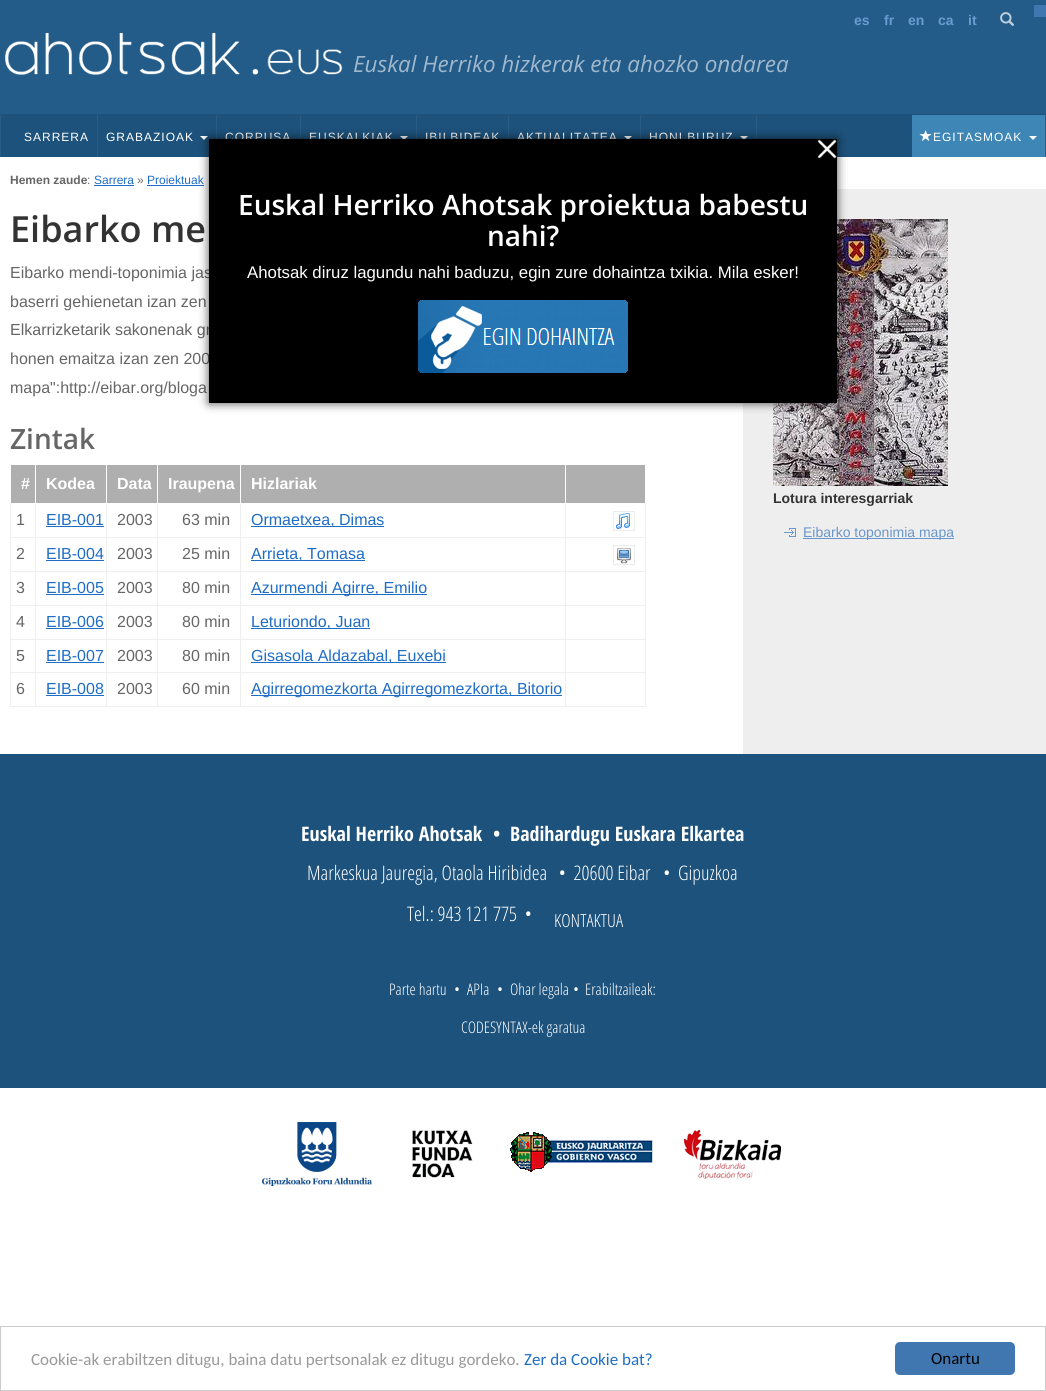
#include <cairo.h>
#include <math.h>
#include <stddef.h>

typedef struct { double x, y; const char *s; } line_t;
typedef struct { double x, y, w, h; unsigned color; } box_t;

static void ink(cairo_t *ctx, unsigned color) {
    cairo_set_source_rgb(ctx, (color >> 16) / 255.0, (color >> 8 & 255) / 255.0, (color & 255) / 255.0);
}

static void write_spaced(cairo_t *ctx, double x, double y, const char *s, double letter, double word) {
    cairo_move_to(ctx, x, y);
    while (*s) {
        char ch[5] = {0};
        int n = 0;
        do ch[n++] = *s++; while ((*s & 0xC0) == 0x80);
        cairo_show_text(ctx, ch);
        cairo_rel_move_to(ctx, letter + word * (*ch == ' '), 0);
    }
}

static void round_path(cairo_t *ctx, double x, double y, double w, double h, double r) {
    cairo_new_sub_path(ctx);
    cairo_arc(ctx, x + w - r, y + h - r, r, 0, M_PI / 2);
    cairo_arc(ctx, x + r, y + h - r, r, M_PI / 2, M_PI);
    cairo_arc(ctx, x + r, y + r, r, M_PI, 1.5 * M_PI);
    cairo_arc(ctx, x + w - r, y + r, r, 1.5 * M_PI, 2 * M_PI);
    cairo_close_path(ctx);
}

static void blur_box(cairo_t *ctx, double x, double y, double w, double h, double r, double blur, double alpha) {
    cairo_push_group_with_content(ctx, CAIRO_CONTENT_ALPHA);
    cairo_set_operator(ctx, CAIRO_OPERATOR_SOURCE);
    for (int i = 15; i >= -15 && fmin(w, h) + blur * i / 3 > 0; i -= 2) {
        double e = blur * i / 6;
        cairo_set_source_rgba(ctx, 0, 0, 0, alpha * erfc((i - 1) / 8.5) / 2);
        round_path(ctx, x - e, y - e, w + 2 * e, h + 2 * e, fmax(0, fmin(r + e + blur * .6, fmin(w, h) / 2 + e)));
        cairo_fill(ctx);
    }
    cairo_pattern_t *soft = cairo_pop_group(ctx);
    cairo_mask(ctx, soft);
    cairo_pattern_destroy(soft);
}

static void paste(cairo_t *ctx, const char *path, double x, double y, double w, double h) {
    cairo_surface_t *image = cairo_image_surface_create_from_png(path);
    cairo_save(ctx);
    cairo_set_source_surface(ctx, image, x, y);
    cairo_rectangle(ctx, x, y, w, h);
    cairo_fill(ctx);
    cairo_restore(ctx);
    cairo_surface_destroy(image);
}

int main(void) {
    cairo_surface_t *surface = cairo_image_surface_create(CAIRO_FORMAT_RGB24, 1046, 1391);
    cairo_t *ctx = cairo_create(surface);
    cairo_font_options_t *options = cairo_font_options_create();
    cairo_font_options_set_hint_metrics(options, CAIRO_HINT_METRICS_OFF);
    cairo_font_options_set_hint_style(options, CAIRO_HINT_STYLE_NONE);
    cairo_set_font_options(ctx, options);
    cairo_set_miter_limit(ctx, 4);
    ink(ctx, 0xFFFFFF);
    cairo_paint(ctx);
    paste(ctx, "media/1.png", 0, 0, 1046, 157);
    cairo_select_font_face(ctx, "Liberation Sans", CAIRO_FONT_SLANT_NORMAL, CAIRO_FONT_WEIGHT_BOLD);
    cairo_set_font_size(ctx, 14);
    ink(ctx, 0x699CD2);
    {
        static const line_t items[] = {
            {854, 25, "es"},
            {884, 25, "fr"},
            {908, 25, "en"},
            {938, 25, "ca"},
            {968, 25, "it"},
        };
        for (size_t i = 0; i < sizeof items / sizeof *items; i++) {
            cairo_move_to(ctx, items[i].x, items[i].y);
            cairo_show_text(ctx, items[i].s);
        }
    }
    paste(ctx, "media/2.png", 1000, 12, 14, 14);
    ink(ctx, 0x4077B1);
    cairo_rectangle(ctx, 1034, 5, 12, 12);
    cairo_fill(ctx);
    paste(ctx, "media/3.png", 5, 32, 338, 43);
    cairo_select_font_face(ctx, "Open Sans", CAIRO_FONT_SLANT_ITALIC, CAIRO_FONT_WEIGHT_NORMAL);
    cairo_set_font_size(ctx, 22.4);
    ink(ctx, 0xA0B8CC);
    cairo_move_to(ctx, 353, 72);
    cairo_show_text(ctx, "Euskal Herriko hizkerak eta ahozko ondarea");
    ink(ctx, 0x2A5C84);
    cairo_rectangle(ctx, 0, 115, 1, 42);
    cairo_fill(ctx);
    cairo_rectangle(ctx, 97, 115, 1, 42);
    cairo_fill(ctx);
    cairo_select_font_face(ctx, "Liberation Sans", CAIRO_FONT_SLANT_NORMAL, CAIRO_FONT_WEIGHT_NORMAL);
    cairo_set_font_size(ctx, 12);
    ink(ctx, 0xFFFFFF);
    write_spaced(ctx, 24, 141, "SARRERA", 1, 0);
    ink(ctx, 0x2A5C84);
    cairo_rectangle(ctx, 216, 115, 1, 24);
    cairo_fill(ctx);
    ink(ctx, 0xFFFFFF);
    write_spaced(ctx, 106, 141, "GRABAZIOAK", 1, 0);
    cairo_new_path(ctx);
    cairo_move_to(ctx, 200, 136);
    cairo_line_to(ctx, 208, 136);
    cairo_line_to(ctx, 204, 140);
    cairo_close_path(ctx);
    cairo_fill(ctx);
    ink(ctx, 0x2A5C84);
    cairo_rectangle(ctx, 300, 115, 1, 24);
    cairo_fill(ctx);
    ink(ctx, 0xFFFFFF);
    write_spaced(ctx, 225, 141, "CORPUSA", 1, 0);
    ink(ctx, 0x2A5C84);
    cairo_rectangle(ctx, 416, 115, 1, 24);
    cairo_fill(ctx);
    ink(ctx, 0xFFFFFF);
    write_spaced(ctx, 309, 141, "EUSKALKIAK", 1, 0);
    cairo_new_path(ctx);
    cairo_move_to(ctx, 400, 136);
    cairo_line_to(ctx, 408, 136);
    cairo_line_to(ctx, 404, 140);
    cairo_close_path(ctx);
    cairo_fill(ctx);
    ink(ctx, 0x2A5C84);
    cairo_rectangle(ctx, 508, 115, 1, 24);
    cairo_fill(ctx);
    ink(ctx, 0xFFFFFF);
    write_spaced(ctx, 425, 141, "IBILBIDEAK", 1, 0);
    ink(ctx, 0x2A5C84);
    cairo_rectangle(ctx, 640, 115, 1, 24);
    cairo_fill(ctx);
    ink(ctx, 0xFFFFFF);
    write_spaced(ctx, 517, 141, "AKTUALITATEA", 1, 0);
    cairo_new_path(ctx);
    cairo_move_to(ctx, 624, 136);
    cairo_line_to(ctx, 632, 136);
    cairo_line_to(ctx, 628, 140);
    cairo_close_path(ctx);
    cairo_fill(ctx);
    ink(ctx, 0x2A5C84);
    cairo_rectangle(ctx, 756, 115, 1, 24);
    cairo_fill(ctx);
    ink(ctx, 0xFFFFFF);
    write_spaced(ctx, 649, 141, "HONI BURUZ", 1, 0);
    cairo_new_path(ctx);
    cairo_move_to(ctx, 740, 136);
    cairo_line_to(ctx, 748, 136);
    cairo_line_to(ctx, 744, 140);
    cairo_close_path(ctx);
    cairo_fill(ctx);
    ink(ctx, 0x3E86B6);
    cairo_rectangle(ctx, 912, 115, 133, 42);
    cairo_fill(ctx);
    ink(ctx, 0x2A5C84);
    cairo_rectangle(ctx, 1045, 115, 1, 42);
    cairo_fill(ctx);
    paste(ctx, "media/4.png", 919, 130, 13, 11);
    ink(ctx, 0xFFFFFF);
    write_spaced(ctx, 933, 141, "EGITASMOAK", 1, 0);
    cairo_new_path(ctx);
    cairo_move_to(ctx, 1029, 136);
    cairo_line_to(ctx, 1037, 136);
    cairo_line_to(ctx, 1033, 140);
    cairo_close_path(ctx);
    cairo_fill(ctx);
    cairo_select_font_face(ctx, "Liberation Sans", CAIRO_FONT_SLANT_NORMAL, CAIRO_FONT_WEIGHT_BOLD);
    ink(ctx, 0x666666);
    cairo_move_to(ctx, 10, 184);
    cairo_show_text(ctx, "Hemen zaude");
    cairo_select_font_face(ctx, "Liberation Sans", CAIRO_FONT_SLANT_NORMAL, CAIRO_FONT_WEIGHT_NORMAL);
    cairo_move_to(ctx, 87, 184);
    cairo_show_text(ctx, ":");
    ink(ctx, 0x1E6DC6);
    cairo_move_to(ctx, 94, 184);
    cairo_show_text(ctx, "Sarrera");
    cairo_rectangle(ctx, 94, 185, 40, 1);
    cairo_fill(ctx);
    ink(ctx, 0x666666);
    cairo_move_to(ctx, 137, 184);
    cairo_show_text(ctx, "»");
    ink(ctx, 0x1E6DC6);
    cairo_move_to(ctx, 147, 184);
    cairo_show_text(ctx, "Proiektuak");
    cairo_rectangle(ctx, 147, 185, 57, 1);
    cairo_fill(ctx);
    cairo_select_font_face(ctx, "Open Sans SemiBold", CAIRO_FONT_SLANT_NORMAL, CAIRO_FONT_WEIGHT_NORMAL);
    cairo_set_font_size(ctx, 36);
    ink(ctx, 0x333333);
    cairo_move_to(ctx, 10, 242);
    cairo_show_text(ctx, "Eibarko me");
    cairo_select_font_face(ctx, "Liberation Sans", CAIRO_FONT_SLANT_NORMAL, CAIRO_FONT_WEIGHT_NORMAL);
    cairo_set_font_size(ctx, 16);
    ink(ctx, 0x666666);
    {
        static const line_t items[] = {
            {10, 278, "Eibarko mendi-toponimia jas"},
            {10, 307, "baserri gehienetan izan zen"},
            {10, 335, "Elkarrizketarik sakonenak gr"},
            {10, 364, "honen emaitza izan zen 200"},
            {10, 393, "mapa\":http://eibar.org/bloga"},
        };
        for (size_t i = 0; i < sizeof items / sizeof *items; i++) {
            cairo_move_to(ctx, items[i].x, items[i].y);
            cairo_show_text(ctx, items[i].s);
        }
    }
    cairo_select_font_face(ctx, "Open Sans SemiBold", CAIRO_FONT_SLANT_NORMAL, CAIRO_FONT_WEIGHT_NORMAL);
    cairo_set_font_size(ctx, 28);
    cairo_move_to(ctx, 10, 449);
    cairo_show_text(ctx, "Zintak");
    {
        static const box_t items[] = {
            {645, 504, 1, 203, 0xEFEFEF},
            {10, 706, 636, 1, 0xEFEFEF},
            {10, 504, 1, 203, 0xEFEFEF},
            {11, 465, 24, 38, 0xAFAFAF},
        };
        for (size_t i = 0; i < sizeof items / sizeof *items; i++) {
            ink(ctx, items[i].color);
            cairo_rectangle(ctx, items[i].x, items[i].y, items[i].w, items[i].h);
            cairo_fill(ctx);
        }
    }
    cairo_select_font_face(ctx, "Liberation Sans", CAIRO_FONT_SLANT_NORMAL, CAIRO_FONT_WEIGHT_BOLD);
    cairo_set_font_size(ctx, 16);
    ink(ctx, 0xFFFFFF);
    cairo_move_to(ctx, 21, 489);
    cairo_show_text(ctx, "#");
    {
        static const box_t items[] = {
            {36, 465, 70, 38, 0xAFAFAF},
            {565, 672, 1, 35, 0xEFEFEF},
            {565, 672, 81, 1, 0xEFEFEF},
            {565, 639, 1, 34, 0xEFEFEF},
            {565, 639, 81, 1, 0xEFEFEF},
            {565, 605, 1, 35, 0xEFEFEF},
            {565, 605, 81, 1, 0xEFEFEF},
            {565, 571, 1, 35, 0xEFEFEF},
            {565, 571, 81, 1, 0xEFEFEF},
            {565, 537, 1, 35, 0xEFEFEF},
            {565, 537, 81, 1, 0xEFEFEF},
            {565, 503, 1, 35, 0xEFEFEF},
            {240, 672, 1, 35, 0xEFEFEF},
            {240, 672, 326, 1, 0xEFEFEF},
            {240, 639, 1, 34, 0xEFEFEF},
            {240, 639, 326, 1, 0xEFEFEF},
            {240, 605, 1, 35, 0xEFEFEF},
            {240, 605, 326, 1, 0xEFEFEF},
            {240, 571, 1, 35, 0xEFEFEF},
            {240, 571, 326, 1, 0xEFEFEF},
            {240, 537, 1, 35, 0xEFEFEF},
            {240, 537, 326, 1, 0xEFEFEF},
            {240, 503, 1, 35, 0xEFEFEF},
            {157, 672, 1, 35, 0xEFEFEF},
            {157, 672, 84, 1, 0xEFEFEF},
            {157, 639, 1, 34, 0xEFEFEF},
            {157, 639, 84, 1, 0xEFEFEF},
            {157, 605, 1, 35, 0xEFEFEF},
            {157, 605, 84, 1, 0xEFEFEF},
            {157, 571, 1, 35, 0xEFEFEF},
            {157, 571, 84, 1, 0xEFEFEF},
            {157, 537, 1, 35, 0xEFEFEF},
            {157, 537, 84, 1, 0xEFEFEF},
            {157, 503, 1, 35, 0xEFEFEF},
            {106, 672, 1, 35, 0xEFEFEF},
            {106, 672, 52, 1, 0xEFEFEF},
            {106, 639, 1, 34, 0xEFEFEF},
            {106, 639, 52, 1, 0xEFEFEF},
            {106, 605, 1, 35, 0xEFEFEF},
            {106, 605, 52, 1, 0xEFEFEF},
            {106, 571, 1, 35, 0xEFEFEF},
            {106, 571, 52, 1, 0xEFEFEF},
            {106, 537, 1, 35, 0xEFEFEF},
            {106, 537, 52, 1, 0xEFEFEF},
            {106, 503, 1, 35, 0xEFEFEF},
            {35, 672, 1, 35, 0xEFEFEF},
            {35, 672, 72, 1, 0xEFEFEF},
            {35, 639, 1, 34, 0xEFEFEF},
            {35, 639, 72, 1, 0xEFEFEF},
            {35, 605, 1, 35, 0xEFEFEF},
            {35, 605, 72, 1, 0xEFEFEF},
            {35, 571, 1, 35, 0xEFEFEF},
            {35, 571, 72, 1, 0xEFEFEF},
            {35, 537, 1, 35, 0xEFEFEF},
            {35, 537, 72, 1, 0xEFEFEF},
            {35, 503, 1, 35, 0xEFEFEF},
            {35, 503, 1, 1, 0xFFFFFF},
        };
        for (size_t i = 0; i < sizeof items / sizeof *items; i++) {
            ink(ctx, items[i].color);
            cairo_rectangle(ctx, items[i].x, items[i].y, items[i].w, items[i].h);
            cairo_fill(ctx);
        }
    }
    cairo_move_to(ctx, 46, 489);
    cairo_show_text(ctx, "Kodea");
    ink(ctx, 0xAFAFAF);
    cairo_rectangle(ctx, 107, 465, 50, 38);
    cairo_fill(ctx);
    ink(ctx, 0xFFFFFF);
    cairo_rectangle(ctx, 106, 503, 1, 1);
    cairo_fill(ctx);
    cairo_move_to(ctx, 117, 489);
    cairo_show_text(ctx, "Data");
    ink(ctx, 0xAFAFAF);
    cairo_rectangle(ctx, 158, 465, 82, 38);
    cairo_fill(ctx);
    ink(ctx, 0xFFFFFF);
    cairo_rectangle(ctx, 157, 503, 1, 1);
    cairo_fill(ctx);
    cairo_move_to(ctx, 168, 489);
    cairo_show_text(ctx, "Iraupena");
    ink(ctx, 0xAFAFAF);
    cairo_rectangle(ctx, 241, 465, 324, 38);
    cairo_fill(ctx);
    ink(ctx, 0xFFFFFF);
    cairo_rectangle(ctx, 240, 503, 1, 1);
    cairo_fill(ctx);
    cairo_move_to(ctx, 251, 489);
    cairo_show_text(ctx, "Hizlariak");
    {
        static const box_t items[] = {
            {566, 465, 79, 38, 0xAFAFAF},
            {565, 503, 1, 1, 0xFFFFFF},
            {10, 537, 26, 1, 0xEFEFEF},
        };
        for (size_t i = 0; i < sizeof items / sizeof *items; i++) {
            ink(ctx, items[i].color);
            cairo_rectangle(ctx, items[i].x, items[i].y, items[i].w, items[i].h);
            cairo_fill(ctx);
        }
    }
    cairo_select_font_face(ctx, "Liberation Sans", CAIRO_FONT_SLANT_NORMAL, CAIRO_FONT_WEIGHT_NORMAL);
    ink(ctx, 0x666666);
    cairo_move_to(ctx, 16, 525);
    cairo_show_text(ctx, "1");
    ink(ctx, 0x1E6DC6);
    cairo_move_to(ctx, 46, 525);
    cairo_show_text(ctx, "EIB-001");
    cairo_rectangle(ctx, 46, 526, 58, 1);
    cairo_fill(ctx);
    ink(ctx, 0x666666);
    cairo_move_to(ctx, 117, 525);
    cairo_show_text(ctx, "2003");
    cairo_move_to(ctx, 182, 525);
    cairo_show_text(ctx, "63 min");
    ink(ctx, 0x1E6DC6);
    cairo_rectangle(ctx, 251, 526, 133, 1);
    cairo_fill(ctx);
    cairo_move_to(ctx, 251, 525);
    cairo_show_text(ctx, "Ormaetxea, Dimas");
    paste(ctx, "media/5.png", 613, 511, 22, 20);
    ink(ctx, 0xEFEFEF);
    cairo_rectangle(ctx, 10, 571, 26, 1);
    cairo_fill(ctx);
    ink(ctx, 0x666666);
    cairo_move_to(ctx, 16, 559);
    cairo_show_text(ctx, "2");
    ink(ctx, 0x1E6DC6);
    cairo_move_to(ctx, 46, 559);
    cairo_show_text(ctx, "EIB-004");
    cairo_rectangle(ctx, 46, 560, 58, 1);
    cairo_fill(ctx);
    ink(ctx, 0x666666);
    cairo_move_to(ctx, 117, 559);
    cairo_show_text(ctx, "2003");
    cairo_move_to(ctx, 182, 559);
    cairo_show_text(ctx, "25 min");
    ink(ctx, 0x1E6DC6);
    cairo_rectangle(ctx, 251, 560, 114, 1);
    cairo_fill(ctx);
    cairo_move_to(ctx, 251, 559);
    cairo_show_text(ctx, "Arrieta, Tomasa");
    paste(ctx, "media/6.png", 613, 545, 22, 20);
    ink(ctx, 0xEFEFEF);
    cairo_rectangle(ctx, 10, 605, 26, 1);
    cairo_fill(ctx);
    ink(ctx, 0x666666);
    cairo_move_to(ctx, 16, 593);
    cairo_show_text(ctx, "3");
    ink(ctx, 0x1E6DC6);
    cairo_move_to(ctx, 46, 593);
    cairo_show_text(ctx, "EIB-005");
    cairo_rectangle(ctx, 46, 594, 58, 1);
    cairo_fill(ctx);
    ink(ctx, 0x666666);
    cairo_move_to(ctx, 117, 593);
    cairo_show_text(ctx, "2003");
    cairo_move_to(ctx, 182, 593);
    cairo_show_text(ctx, "80 min");
    ink(ctx, 0x1E6DC6);
    cairo_rectangle(ctx, 251, 594, 176, 1);
    cairo_fill(ctx);
    cairo_move_to(ctx, 251, 593);
    cairo_show_text(ctx, "Azurmendi Agirre, Emilio");
    ink(ctx, 0xEFEFEF);
    cairo_rectangle(ctx, 10, 639, 26, 1);
    cairo_fill(ctx);
    ink(ctx, 0x666666);
    cairo_move_to(ctx, 16, 627);
    cairo_show_text(ctx, "4");
    ink(ctx, 0x1E6DC6);
    cairo_move_to(ctx, 46, 627);
    cairo_show_text(ctx, "EIB-006");
    cairo_rectangle(ctx, 46, 628, 58, 1);
    cairo_fill(ctx);
    ink(ctx, 0x666666);
    cairo_move_to(ctx, 117, 627);
    cairo_show_text(ctx, "2003");
    cairo_move_to(ctx, 182, 627);
    cairo_show_text(ctx, "80 min");
    ink(ctx, 0x1E6DC6);
    cairo_rectangle(ctx, 251, 628, 119, 1);
    cairo_fill(ctx);
    cairo_move_to(ctx, 251, 627);
    cairo_show_text(ctx, "Leturiondo, Juan");
    ink(ctx, 0xEFEFEF);
    cairo_rectangle(ctx, 10, 672, 26, 1);
    cairo_fill(ctx);
    ink(ctx, 0x666666);
    cairo_move_to(ctx, 16, 661);
    cairo_show_text(ctx, "5");
    ink(ctx, 0x1E6DC6);
    cairo_move_to(ctx, 46, 661);
    cairo_show_text(ctx, "EIB-007");
    cairo_rectangle(ctx, 46, 662, 58, 1);
    cairo_fill(ctx);
    ink(ctx, 0x666666);
    cairo_move_to(ctx, 117, 661);
    cairo_show_text(ctx, "2003");
    cairo_move_to(ctx, 182, 661);
    cairo_show_text(ctx, "80 min");
    ink(ctx, 0x1E6DC6);
    cairo_rectangle(ctx, 251, 662, 195, 1);
    cairo_fill(ctx);
    cairo_move_to(ctx, 251, 661);
    cairo_show_text(ctx, "Gisasola Aldazabal, Euxebi");
    ink(ctx, 0x666666);
    cairo_move_to(ctx, 16, 694);
    cairo_show_text(ctx, "6");
    ink(ctx, 0x1E6DC6);
    cairo_move_to(ctx, 46, 694);
    cairo_show_text(ctx, "EIB-008");
    cairo_rectangle(ctx, 46, 695, 58, 1);
    cairo_fill(ctx);
    ink(ctx, 0x666666);
    cairo_move_to(ctx, 117, 694);
    cairo_show_text(ctx, "2003");
    cairo_move_to(ctx, 182, 694);
    cairo_show_text(ctx, "60 min");
    ink(ctx, 0x1E6DC6);
    cairo_rectangle(ctx, 251, 695, 311, 1);
    cairo_fill(ctx);
    cairo_move_to(ctx, 251, 694);
    cairo_show_text(ctx, "Agirregomezkorta Agirregomezkorta, Bitorio");
    ink(ctx, 0xEFEEEE);
    cairo_rectangle(ctx, 743, 189, 303, 565);
    cairo_fill(ctx);
    paste(ctx, "media/7.png", 773, 219, 175, 267);
    cairo_select_font_face(ctx, "Liberation Sans", CAIRO_FONT_SLANT_NORMAL, CAIRO_FONT_WEIGHT_BOLD);
    cairo_set_font_size(ctx, 14);
    ink(ctx, 0x333333);
    cairo_move_to(ctx, 773, 503);
    cairo_show_text(ctx, "Lotura interesgarriak");
    paste(ctx, "media/8.png", 784, 528, 12, 9);
    ink(ctx, 0x6A97C9);
    cairo_rectangle(ctx, 803, 538, 151, 1);
    cairo_fill(ctx);
    cairo_select_font_face(ctx, "Liberation Sans", CAIRO_FONT_SLANT_NORMAL, CAIRO_FONT_WEIGHT_NORMAL);
    cairo_move_to(ctx, 803, 537);
    cairo_show_text(ctx, "Eibarko toponimia mapa");
    ink(ctx, 0x1D527C);
    cairo_rectangle(ctx, 0, 754, 1046, 334);
    cairo_fill(ctx);
    cairo_select_font_face(ctx, "Open Sans Condensed", CAIRO_FONT_SLANT_NORMAL, CAIRO_FONT_WEIGHT_BOLD);
    cairo_set_font_size(ctx, 20);
    ink(ctx, 0xFFFFFF);
    {
        static const line_t items[] = {
            {301, 841, "Euskal Herriko Ahotsak"},
            {493, 841, "•"},
            {510, 841, "Badihardugu Euskara Elkartea"},
        };
        for (size_t i = 0; i < sizeof items / sizeof *items; i++) {
            cairo_move_to(ctx, items[i].x, items[i].y);
            cairo_show_text(ctx, items[i].s);
        }
    }
    cairo_select_font_face(ctx, "Open Sans Condensed Light", CAIRO_FONT_SLANT_NORMAL, CAIRO_FONT_WEIGHT_NORMAL);
    cairo_move_to(ctx, 307, 880);
    cairo_show_text(ctx, "Markeskua Jauregia, Otaola Hiribidea   •  20600 Eibar");
    cairo_move_to(ctx, 663, 880);
    cairo_show_text(ctx, "•  Gipuzkoa");
    cairo_move_to(ctx, 407, 921);
    cairo_show_text(ctx, "Tel.: 943 121 775  •");
    cairo_set_font_size(ctx, 18);
    cairo_move_to(ctx, 554, 927);
    cairo_show_text(ctx, "KONTAKTUA");
    cairo_set_font_size(ctx, 16);
    {
        static const line_t items[] = {
            {389, 995, "Parte hartu"},
            {454, 995, "•"},
            {467, 995, "APIa"},
            {497, 995, "•"},
            {510, 995, "Ohar legala"},
            {573, 995, "•  Erabiltzaileak:"},
            {461, 1033, "CODESYNTAX-ek garatua"},
        };
        for (size_t i = 0; i < sizeof items / sizeof *items; i++) {
            cairo_move_to(ctx, items[i].x, items[i].y);
            cairo_show_text(ctx, items[i].s);
        }
    }
    paste(ctx, "media/9.png", 262, 1122, 110, 64);
    paste(ctx, "media/10.png", 412, 1130, 61, 48);
    paste(ctx, "media/11.png", 510, 1132, 143, 40);
    paste(ctx, "media/12.png", 684, 1130, 97, 49);
    ink(ctx, 0x010101);
    blur_box(ctx, 209, 139, 628, 264, 0, 5, 0.7);
    ink(ctx, 0x000000);
    cairo_rectangle(ctx, 209, 139, 628, 264);
    cairo_fill(ctx);
    paste(ctx, "media/13.png", 817, 139, 20, 20);
    cairo_select_font_face(ctx, "Open Sans SemiBold", CAIRO_FONT_SLANT_NORMAL, CAIRO_FONT_WEIGHT_NORMAL);
    cairo_set_font_size(ctx, 28);
    ink(ctx, 0xFFFFFF);
    cairo_move_to(ctx, 238, 215);
    cairo_show_text(ctx, "Euskal Herriko Ahotsak proiektua babestu");
    cairo_move_to(ctx, 487, 246);
    cairo_show_text(ctx, "nahi?");
    cairo_select_font_face(ctx, "Liberation Sans", CAIRO_FONT_SLANT_NORMAL, CAIRO_FONT_WEIGHT_NORMAL);
    cairo_set_font_size(ctx, 16.8);
    cairo_move_to(ctx, 247, 278);
    cairo_show_text(ctx, "Ahotsak diruz lagundu nahi baduzu, egin zure dohaintza txikia. Mila esker!");
    paste(ctx, "media/14.png", 418, 300, 210, 73);
    cairo_rectangle(ctx, 0.5, 1326.5, 1045, 64);
    ink(ctx, 0xCCCCCC);
    cairo_set_line_width(ctx, 1);
    cairo_stroke(ctx);
    cairo_select_font_face(ctx, "Carlito", CAIRO_FONT_SLANT_NORMAL, CAIRO_FONT_WEIGHT_NORMAL);
    cairo_set_font_size(ctx, 17);
    ink(ctx, 0x999999);
    cairo_move_to(ctx, 31, 1365);
    cairo_show_text(ctx, "Cookie-ak erabiltzen ditugu, baina datu pertsonalak ez ditugu gordeko.");
    ink(ctx, 0x1E6DC6);
    cairo_move_to(ctx, 524, 1365);
    cairo_show_text(ctx, "Zer da Cookie bat?");
    ink(ctx, 0x4077B1);
    round_path(ctx, 895, 1342, 120, 33, 5);
    cairo_fill(ctx);
    ink(ctx, 0x000000);
    cairo_move_to(ctx, 931, 1364);
    cairo_show_text(ctx, "Onartu");
    cairo_surface_write_to_png(surface, "image.png");
    cairo_font_options_destroy(options);
    cairo_destroy(ctx);
    cairo_surface_destroy(surface);
    return 0;
}
